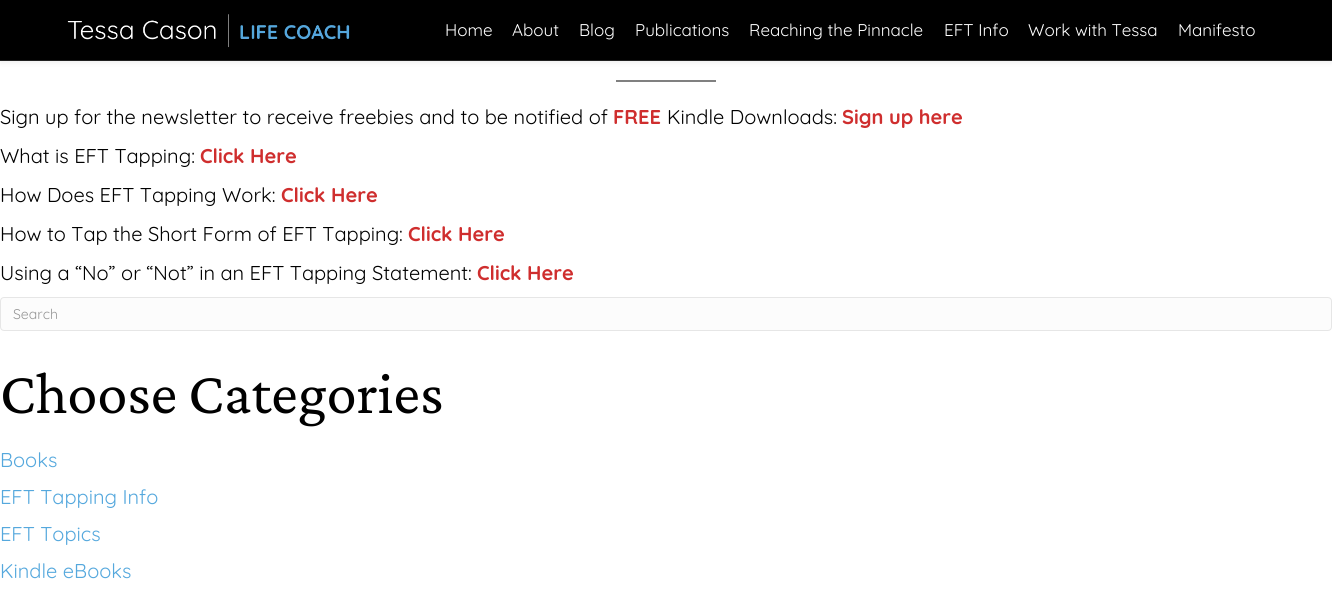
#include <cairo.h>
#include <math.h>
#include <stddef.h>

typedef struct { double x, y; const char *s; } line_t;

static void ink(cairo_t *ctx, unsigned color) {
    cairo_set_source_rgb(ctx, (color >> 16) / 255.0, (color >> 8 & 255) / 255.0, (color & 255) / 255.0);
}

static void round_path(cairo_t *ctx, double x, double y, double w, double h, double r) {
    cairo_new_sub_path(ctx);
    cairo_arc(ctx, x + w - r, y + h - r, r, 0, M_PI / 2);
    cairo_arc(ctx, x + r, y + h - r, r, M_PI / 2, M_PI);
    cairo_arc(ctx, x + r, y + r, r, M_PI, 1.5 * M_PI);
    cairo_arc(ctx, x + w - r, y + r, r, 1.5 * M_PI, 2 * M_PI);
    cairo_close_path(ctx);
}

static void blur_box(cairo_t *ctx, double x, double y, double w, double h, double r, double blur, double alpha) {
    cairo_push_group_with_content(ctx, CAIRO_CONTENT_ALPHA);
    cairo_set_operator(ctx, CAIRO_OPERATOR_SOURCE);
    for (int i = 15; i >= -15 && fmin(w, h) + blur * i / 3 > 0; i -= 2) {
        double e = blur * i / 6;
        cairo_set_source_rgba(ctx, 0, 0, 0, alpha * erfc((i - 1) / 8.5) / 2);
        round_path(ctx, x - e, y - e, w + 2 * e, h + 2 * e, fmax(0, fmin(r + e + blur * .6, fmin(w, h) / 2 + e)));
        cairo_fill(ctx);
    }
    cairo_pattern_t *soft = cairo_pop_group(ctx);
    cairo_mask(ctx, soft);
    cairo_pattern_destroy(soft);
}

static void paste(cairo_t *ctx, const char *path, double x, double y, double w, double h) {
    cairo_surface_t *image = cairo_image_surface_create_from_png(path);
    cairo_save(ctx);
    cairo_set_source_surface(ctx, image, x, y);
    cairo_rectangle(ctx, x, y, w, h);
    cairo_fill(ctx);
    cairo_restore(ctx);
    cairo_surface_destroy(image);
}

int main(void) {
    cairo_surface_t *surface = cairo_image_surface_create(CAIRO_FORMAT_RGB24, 1332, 598);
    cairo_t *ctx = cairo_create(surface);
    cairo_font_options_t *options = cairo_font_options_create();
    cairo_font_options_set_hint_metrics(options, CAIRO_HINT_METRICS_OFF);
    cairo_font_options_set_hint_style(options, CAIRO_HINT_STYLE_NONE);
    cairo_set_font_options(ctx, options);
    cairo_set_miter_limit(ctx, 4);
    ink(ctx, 0xFFFFFF);
    cairo_paint(ctx);
    ink(ctx, 0x000000);
    blur_box(ctx, 0, 0, 1332, 61, 0, 3.5, 0.1);
    ink(ctx, 0x000000);
    cairo_rectangle(ctx, 0, 0, 1332, 60);
    cairo_fill(ctx);
    ink(ctx, 0x212121);
    cairo_rectangle(ctx, 0, 60, 1332, 1);
    cairo_fill(ctx);
    paste(ctx, "media/1.png", 67, 14, 283, 34);
    cairo_select_font_face(ctx, "Quicksand", CAIRO_FONT_SLANT_NORMAL, CAIRO_FONT_WEIGHT_NORMAL);
    cairo_set_font_size(ctx, 17);
    ink(ctx, 0xFFFFFF);
    {
        static const line_t items[] = {
            {445, 36, "Home"},
            {512, 36, "About"},
            {579, 36, "Blog"},
            {635, 36, "Publications"},
            {749, 36, "Reaching the Pinnacle"},
            {944, 36, "EFT Info"},
            {1028, 36, "Work with Tessa"},
            {1178, 36, "Manifesto"},
        };
        for (size_t i = 0; i < sizeof items / sizeof *items; i++) {
            cairo_move_to(ctx, items[i].x, items[i].y);
            cairo_show_text(ctx, items[i].s);
        }
    }
    ink(ctx, 0x808080);
    cairo_rectangle(ctx, 616, 80, 100, 2);
    cairo_fill(ctx);
    cairo_set_font_size(ctx, 20);
    ink(ctx, 0x000000);
    cairo_move_to(ctx, 0, 124);
    cairo_show_text(ctx, "Sign up for the newsletter to receive freebies and to be notified of");
    cairo_select_font_face(ctx, "Quicksand", CAIRO_FONT_SLANT_NORMAL, CAIRO_FONT_WEIGHT_BOLD);
    ink(ctx, 0xCF2E2E);
    cairo_move_to(ctx, 613, 124);
    cairo_show_text(ctx, "FREE");
    cairo_select_font_face(ctx, "Quicksand", CAIRO_FONT_SLANT_NORMAL, CAIRO_FONT_WEIGHT_NORMAL);
    ink(ctx, 0x000000);
    cairo_move_to(ctx, 667, 124);
    cairo_show_text(ctx, "Kindle Downloads:");
    cairo_select_font_face(ctx, "Quicksand", CAIRO_FONT_SLANT_NORMAL, CAIRO_FONT_WEIGHT_BOLD);
    ink(ctx, 0xCF2E2E);
    cairo_move_to(ctx, 842, 124);
    cairo_show_text(ctx, "Sign up here");
    cairo_select_font_face(ctx, "Quicksand", CAIRO_FONT_SLANT_NORMAL, CAIRO_FONT_WEIGHT_NORMAL);
    ink(ctx, 0x000000);
    cairo_move_to(ctx, 0, 163);
    cairo_show_text(ctx, "What is EFT Tapping:");
    cairo_select_font_face(ctx, "Quicksand", CAIRO_FONT_SLANT_NORMAL, CAIRO_FONT_WEIGHT_BOLD);
    ink(ctx, 0xCF2E2E);
    cairo_move_to(ctx, 200, 163);
    cairo_show_text(ctx, "Click Here");
    cairo_select_font_face(ctx, "Quicksand", CAIRO_FONT_SLANT_NORMAL, CAIRO_FONT_WEIGHT_NORMAL);
    ink(ctx, 0x000000);
    cairo_move_to(ctx, 0, 202);
    cairo_show_text(ctx, "How Does EFT Tapping Work:");
    cairo_select_font_face(ctx, "Quicksand", CAIRO_FONT_SLANT_NORMAL, CAIRO_FONT_WEIGHT_BOLD);
    ink(ctx, 0xCF2E2E);
    cairo_move_to(ctx, 281, 202);
    cairo_show_text(ctx, "Click Here");
    cairo_select_font_face(ctx, "Quicksand", CAIRO_FONT_SLANT_NORMAL, CAIRO_FONT_WEIGHT_NORMAL);
    ink(ctx, 0x000000);
    cairo_move_to(ctx, 0, 241);
    cairo_show_text(ctx, "How to Tap the Short Form of EFT Tapping:");
    cairo_select_font_face(ctx, "Quicksand", CAIRO_FONT_SLANT_NORMAL, CAIRO_FONT_WEIGHT_BOLD);
    ink(ctx, 0xCF2E2E);
    cairo_move_to(ctx, 408, 241);
    cairo_show_text(ctx, "Click Here");
    cairo_select_font_face(ctx, "Quicksand", CAIRO_FONT_SLANT_NORMAL, CAIRO_FONT_WEIGHT_NORMAL);
    ink(ctx, 0x000000);
    cairo_move_to(ctx, 0, 280);
    cairo_show_text(ctx, "Using a “No” or “Not” in an EFT Tapping Statement:");
    cairo_select_font_face(ctx, "Quicksand", CAIRO_FONT_SLANT_NORMAL, CAIRO_FONT_WEIGHT_BOLD);
    ink(ctx, 0xCF2E2E);
    cairo_move_to(ctx, 477, 280);
    cairo_show_text(ctx, "Click Here");
    ink(ctx, 0xFCFCFC);
    round_path(ctx, 0.5, 297.5, 1331, 33, 3.5);
    cairo_fill_preserve(ctx);
    ink(ctx, 0xE6E6E6);
    cairo_set_line_width(ctx, 1);
    cairo_stroke(ctx);
    cairo_select_font_face(ctx, "Quicksand", CAIRO_FONT_SLANT_NORMAL, CAIRO_FONT_WEIGHT_NORMAL);
    cairo_set_font_size(ctx, 14);
    ink(ctx, 0x979797);
    cairo_move_to(ctx, 13, 319);
    cairo_show_text(ctx, "Search");
    cairo_select_font_face(ctx, "Crimson Pro", CAIRO_FONT_SLANT_NORMAL, CAIRO_FONT_WEIGHT_NORMAL);
    cairo_set_font_size(ctx, 60);
    ink(ctx, 0x000000);
    cairo_move_to(ctx, 0, 413);
    cairo_show_text(ctx, "Choose Categories");
    cairo_select_font_face(ctx, "Quicksand", CAIRO_FONT_SLANT_NORMAL, CAIRO_FONT_WEIGHT_NORMAL);
    cairo_set_font_size(ctx, 20);
    ink(ctx, 0x55A8DD);
    {
        static const line_t items[] = {
            {0, 467, "Books"},
            {0, 504, "EFT Tapping Info"},
            {0, 541, "EFT Topics"},
            {0, 578, "Kindle eBooks"},
        };
        for (size_t i = 0; i < sizeof items / sizeof *items; i++) {
            cairo_move_to(ctx, items[i].x, items[i].y);
            cairo_show_text(ctx, items[i].s);
        }
    }
    cairo_surface_write_to_png(surface, "image.png");
    cairo_font_options_destroy(options);
    cairo_destroy(ctx);
    cairo_surface_destroy(surface);
    return 0;
}
